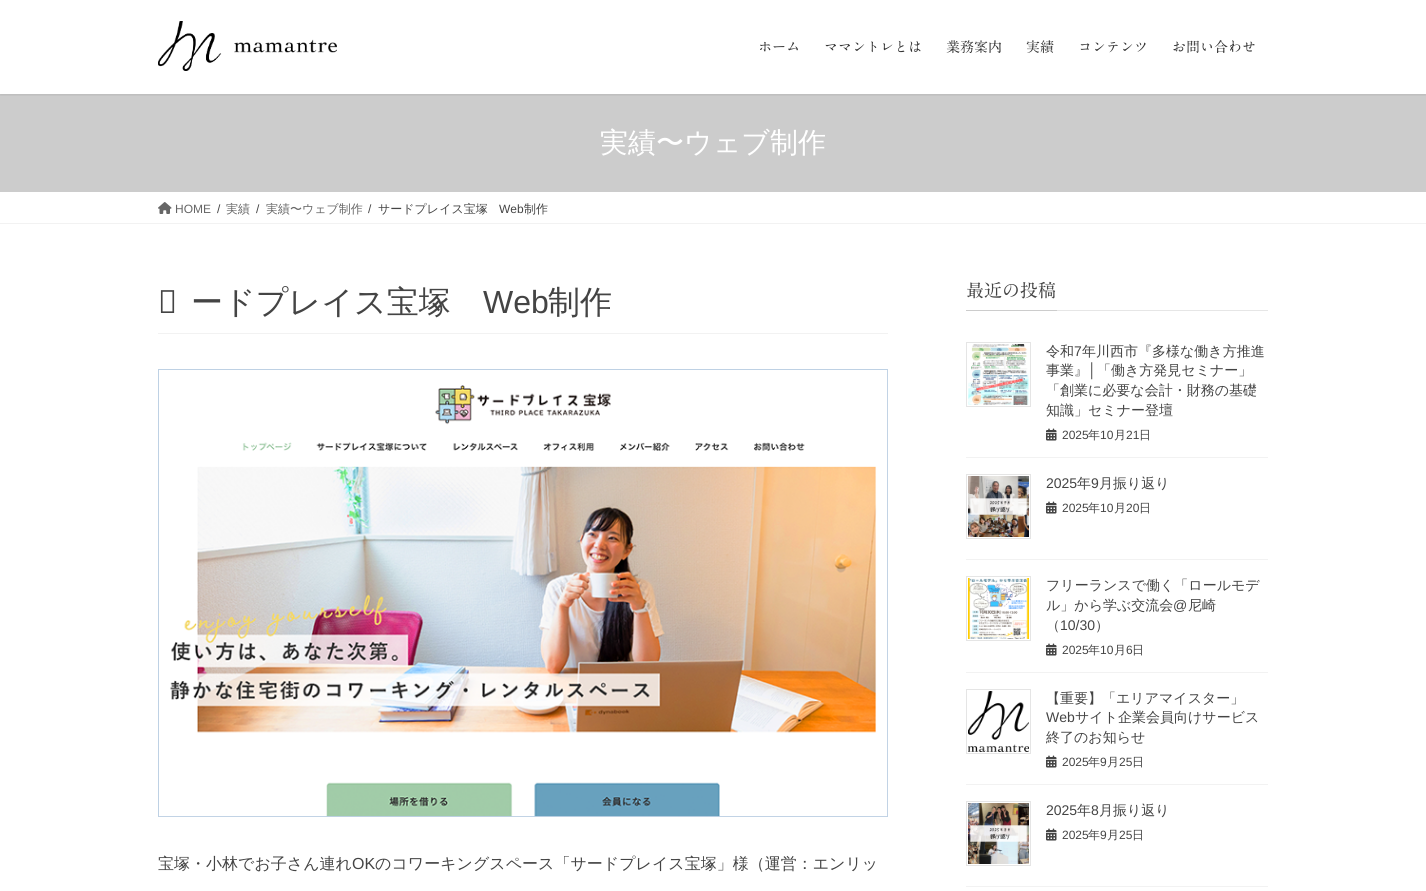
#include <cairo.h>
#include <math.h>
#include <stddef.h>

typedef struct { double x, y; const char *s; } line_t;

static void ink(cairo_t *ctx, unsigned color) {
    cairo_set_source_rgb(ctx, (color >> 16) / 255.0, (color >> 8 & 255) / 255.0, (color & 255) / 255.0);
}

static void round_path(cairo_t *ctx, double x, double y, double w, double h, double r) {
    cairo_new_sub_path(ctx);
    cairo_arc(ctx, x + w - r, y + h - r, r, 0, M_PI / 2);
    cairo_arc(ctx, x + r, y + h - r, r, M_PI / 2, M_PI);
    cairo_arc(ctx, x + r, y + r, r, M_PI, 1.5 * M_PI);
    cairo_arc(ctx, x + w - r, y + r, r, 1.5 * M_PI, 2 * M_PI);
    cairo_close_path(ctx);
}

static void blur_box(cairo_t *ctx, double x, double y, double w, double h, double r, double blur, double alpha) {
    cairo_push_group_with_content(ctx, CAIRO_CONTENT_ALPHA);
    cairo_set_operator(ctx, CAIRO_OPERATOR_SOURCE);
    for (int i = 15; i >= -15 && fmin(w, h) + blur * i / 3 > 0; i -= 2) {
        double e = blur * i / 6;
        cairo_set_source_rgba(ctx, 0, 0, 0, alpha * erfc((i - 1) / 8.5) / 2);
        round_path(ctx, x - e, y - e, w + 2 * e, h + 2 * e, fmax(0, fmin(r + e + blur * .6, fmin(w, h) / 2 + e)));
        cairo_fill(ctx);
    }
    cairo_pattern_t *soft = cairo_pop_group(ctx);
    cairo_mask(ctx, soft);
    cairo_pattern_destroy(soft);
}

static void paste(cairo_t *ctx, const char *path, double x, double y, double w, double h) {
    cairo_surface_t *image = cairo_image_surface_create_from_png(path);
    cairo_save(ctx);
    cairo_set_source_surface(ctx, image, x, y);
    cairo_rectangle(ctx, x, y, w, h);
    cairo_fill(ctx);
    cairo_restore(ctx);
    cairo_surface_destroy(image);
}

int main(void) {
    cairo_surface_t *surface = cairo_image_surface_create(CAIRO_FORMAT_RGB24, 1426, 891);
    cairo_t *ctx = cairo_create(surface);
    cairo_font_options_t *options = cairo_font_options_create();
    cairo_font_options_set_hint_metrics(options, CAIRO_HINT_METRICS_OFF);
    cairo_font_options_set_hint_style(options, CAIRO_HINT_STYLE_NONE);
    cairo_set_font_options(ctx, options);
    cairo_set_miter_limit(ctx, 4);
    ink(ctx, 0xFFFFFF);
    cairo_paint(ctx);
    ink(ctx, 0xCCCCCC);
    cairo_rectangle(ctx, 0, 94, 1426, 98);
    cairo_fill(ctx);
    cairo_save(ctx);
    cairo_rectangle(ctx, 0, 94, 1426, 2);
    cairo_clip(ctx);
    ink(ctx, 0x000000);
    blur_box(ctx, 0, 1, 1426, 94, 0, 1.5, 0.1);
    cairo_restore(ctx);
    paste(ctx, "media/1.png", 158, 21, 179, 50);
    cairo_select_font_face(ctx, "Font", CAIRO_FONT_SLANT_NORMAL, CAIRO_FONT_WEIGHT_NORMAL);
    cairo_set_font_size(ctx, 14);
    ink(ctx, 0x333333);
    {
        static const line_t items[] = {
            {758, 52, "ホーム"},
            {824, 52, "ママントレとは"},
            {946, 52, "業務案内"},
            {1026, 52, "実績"},
            {1078, 52, "コンテンツ"},
            {1172, 52, "お問い合わせ"},
        };
        for (size_t i = 0; i < sizeof items / sizeof *items; i++) {
            cairo_move_to(ctx, items[i].x, items[i].y);
            cairo_show_text(ctx, items[i].s);
        }
    }
    cairo_select_font_face(ctx, "WenQuanYi Zen Hei Medium", CAIRO_FONT_SLANT_NORMAL, CAIRO_FONT_WEIGHT_NORMAL);
    cairo_set_font_size(ctx, 28);
    ink(ctx, 0xFFFFFF);
    cairo_move_to(ctx, 600, 152);
    cairo_show_text(ctx, "実績〜ウェブ制作");
    ink(ctx, 0xF2F2F2);
    cairo_rectangle(ctx, 0, 223, 1426, 1);
    cairo_fill(ctx);
    paste(ctx, "media/2.png", 158, 202, 14, 12);
    cairo_select_font_face(ctx, "Liberation Sans", CAIRO_FONT_SLANT_NORMAL, CAIRO_FONT_WEIGHT_NORMAL);
    cairo_set_font_size(ctx, 12);
    ink(ctx, 0x666666);
    cairo_move_to(ctx, 175, 213);
    cairo_show_text(ctx, "HOME");
    ink(ctx, 0x444444);
    cairo_move_to(ctx, 217, 213);
    cairo_show_text(ctx, "/");
    cairo_select_font_face(ctx, "WenQuanYi Zen Hei Medium", CAIRO_FONT_SLANT_NORMAL, CAIRO_FONT_WEIGHT_NORMAL);
    ink(ctx, 0x666666);
    cairo_move_to(ctx, 226, 213);
    cairo_show_text(ctx, "実績");
    cairo_select_font_face(ctx, "Liberation Sans", CAIRO_FONT_SLANT_NORMAL, CAIRO_FONT_WEIGHT_NORMAL);
    ink(ctx, 0x444444);
    cairo_move_to(ctx, 256, 213);
    cairo_show_text(ctx, "/");
    cairo_select_font_face(ctx, "WenQuanYi Zen Hei Medium", CAIRO_FONT_SLANT_NORMAL, CAIRO_FONT_WEIGHT_NORMAL);
    ink(ctx, 0x666666);
    cairo_move_to(ctx, 266, 213);
    cairo_show_text(ctx, "実績〜ウェブ制作");
    cairo_select_font_face(ctx, "Liberation Sans", CAIRO_FONT_SLANT_NORMAL, CAIRO_FONT_WEIGHT_NORMAL);
    ink(ctx, 0x444444);
    cairo_move_to(ctx, 368, 213);
    cairo_show_text(ctx, "/");
    cairo_select_font_face(ctx, "WenQuanYi Zen Hei Medium", CAIRO_FONT_SLANT_NORMAL, CAIRO_FONT_WEIGHT_NORMAL);
    cairo_move_to(ctx, 378, 213);
    cairo_show_text(ctx, "サードプレイス宝塚");
    cairo_select_font_face(ctx, "Liberation Sans", CAIRO_FONT_SLANT_NORMAL, CAIRO_FONT_WEIGHT_NORMAL);
    cairo_move_to(ctx, 499, 213);
    cairo_show_text(ctx, "Web");
    cairo_select_font_face(ctx, "WenQuanYi Zen Hei Medium", CAIRO_FONT_SLANT_NORMAL, CAIRO_FONT_WEIGHT_NORMAL);
    cairo_move_to(ctx, 524, 213);
    cairo_show_text(ctx, "制作");
    ink(ctx, 0xF2F2F2);
    cairo_rectangle(ctx, 158, 333, 730, 1);
    cairo_fill(ctx);
    cairo_select_font_face(ctx, "Noto Sans Medium", CAIRO_FONT_SLANT_NORMAL, CAIRO_FONT_WEIGHT_NORMAL);
    cairo_set_font_size(ctx, 32);
    ink(ctx, 0x444444);
    cairo_move_to(ctx, 158, 313);
    cairo_show_text(ctx, "サ");
    cairo_select_font_face(ctx, "WenQuanYi Zen Hei Medium", CAIRO_FONT_SLANT_NORMAL, CAIRO_FONT_WEIGHT_NORMAL);
    cairo_move_to(ctx, 191, 313);
    cairo_show_text(ctx, "ードプレイス宝塚");
    cairo_select_font_face(ctx, "Liberation Sans", CAIRO_FONT_SLANT_NORMAL, CAIRO_FONT_WEIGHT_NORMAL);
    cairo_move_to(ctx, 483, 313);
    cairo_show_text(ctx, "Web");
    cairo_select_font_face(ctx, "WenQuanYi Zen Hei Medium", CAIRO_FONT_SLANT_NORMAL, CAIRO_FONT_WEIGHT_NORMAL);
    cairo_move_to(ctx, 548, 313);
    cairo_show_text(ctx, "制作");
    paste(ctx, "media/3.png", 158, 369, 730, 448);
    cairo_set_font_size(ctx, 16);
    cairo_move_to(ctx, 158, 869);
    cairo_show_text(ctx, "宝塚・小林でお子さん連れ");
    cairo_select_font_face(ctx, "Liberation Sans", CAIRO_FONT_SLANT_NORMAL, CAIRO_FONT_WEIGHT_NORMAL);
    cairo_move_to(ctx, 352, 869);
    cairo_show_text(ctx, "OK");
    cairo_select_font_face(ctx, "WenQuanYi Zen Hei Medium", CAIRO_FONT_SLANT_NORMAL, CAIRO_FONT_WEIGHT_NORMAL);
    cairo_move_to(ctx, 375, 869);
    cairo_show_text(ctx, "のコワーキングスペース「サードプレイス宝塚」様（運営：エンリッ");
    ink(ctx, 0xE6E6E6);
    cairo_rectangle(ctx, 1057, 310, 211, 1);
    cairo_fill(ctx);
    cairo_select_font_face(ctx, "Font", CAIRO_FONT_SLANT_NORMAL, CAIRO_FONT_WEIGHT_NORMAL);
    cairo_set_font_size(ctx, 18);
    ink(ctx, 0x444444);
    cairo_move_to(ctx, 966, 297);
    cairo_show_text(ctx, "最近の投稿");
    ink(ctx, 0xCCCCCC);
    cairo_rectangle(ctx, 966, 310, 91, 1);
    cairo_fill(ctx);
    ink(ctx, 0xF2F2F2);
    cairo_rectangle(ctx, 966, 457, 302, 1);
    cairo_fill(ctx);
    cairo_rectangle(ctx, 966.5, 342.5, 64, 64);
    ink(ctx, 0xE5E5E5);
    cairo_set_line_width(ctx, 1);
    cairo_stroke(ctx);
    paste(ctx, "media/4.png", 968, 344, 61, 61);
    cairo_select_font_face(ctx, "WenQuanYi Zen Hei Medium", CAIRO_FONT_SLANT_NORMAL, CAIRO_FONT_WEIGHT_NORMAL);
    cairo_set_font_size(ctx, 14);
    ink(ctx, 0x444444);
    cairo_move_to(ctx, 1046, 356);
    cairo_show_text(ctx, "令和");
    cairo_select_font_face(ctx, "Liberation Sans", CAIRO_FONT_SLANT_NORMAL, CAIRO_FONT_WEIGHT_NORMAL);
    cairo_move_to(ctx, 1074, 356);
    cairo_show_text(ctx, "7");
    cairo_select_font_face(ctx, "WenQuanYi Zen Hei Medium", CAIRO_FONT_SLANT_NORMAL, CAIRO_FONT_WEIGHT_NORMAL);
    cairo_move_to(ctx, 1082, 356);
    cairo_show_text(ctx, "年川西市『多様な働き方推進");
    cairo_move_to(ctx, 1046, 375);
    cairo_show_text(ctx, "事業』");
    cairo_select_font_face(ctx, "Liberation Sans", CAIRO_FONT_SLANT_NORMAL, CAIRO_FONT_WEIGHT_NORMAL);
    cairo_move_to(ctx, 1088, 375);
    cairo_show_text(ctx, "│");
    cairo_select_font_face(ctx, "WenQuanYi Zen Hei Medium", CAIRO_FONT_SLANT_NORMAL, CAIRO_FONT_WEIGHT_NORMAL);
    {
        static const line_t items[] = {
            {1097, 375, "「働き方発見セミナー」"},
            {1046, 395, "「創業に必要な会計・財務の基礎"},
            {1046, 415, "知識」セミナー登壇"},
        };
        for (size_t i = 0; i < sizeof items / sizeof *items; i++) {
            cairo_move_to(ctx, items[i].x, items[i].y);
            cairo_show_text(ctx, items[i].s);
        }
    }
    paste(ctx, "media/5.png", 1046, 428, 11, 13);
    cairo_select_font_face(ctx, "Liberation Sans", CAIRO_FONT_SLANT_NORMAL, CAIRO_FONT_WEIGHT_NORMAL);
    cairo_set_font_size(ctx, 12);
    cairo_move_to(ctx, 1062, 439);
    cairo_show_text(ctx, "2025");
    cairo_select_font_face(ctx, "WenQuanYi Zen Hei Medium", CAIRO_FONT_SLANT_NORMAL, CAIRO_FONT_WEIGHT_NORMAL);
    cairo_move_to(ctx, 1088, 439);
    cairo_show_text(ctx, "年");
    cairo_select_font_face(ctx, "Liberation Sans", CAIRO_FONT_SLANT_NORMAL, CAIRO_FONT_WEIGHT_NORMAL);
    cairo_move_to(ctx, 1100, 439);
    cairo_show_text(ctx, "10");
    cairo_select_font_face(ctx, "WenQuanYi Zen Hei Medium", CAIRO_FONT_SLANT_NORMAL, CAIRO_FONT_WEIGHT_NORMAL);
    cairo_move_to(ctx, 1114, 439);
    cairo_show_text(ctx, "月");
    cairo_select_font_face(ctx, "Liberation Sans", CAIRO_FONT_SLANT_NORMAL, CAIRO_FONT_WEIGHT_NORMAL);
    cairo_move_to(ctx, 1126, 439);
    cairo_show_text(ctx, "21");
    cairo_select_font_face(ctx, "WenQuanYi Zen Hei Medium", CAIRO_FONT_SLANT_NORMAL, CAIRO_FONT_WEIGHT_NORMAL);
    cairo_move_to(ctx, 1139, 439);
    cairo_show_text(ctx, "日");
    ink(ctx, 0xF2F2F2);
    cairo_rectangle(ctx, 966, 559, 302, 1);
    cairo_fill(ctx);
    cairo_rectangle(ctx, 966.5, 474.5, 64, 64);
    ink(ctx, 0xE5E5E5);
    cairo_stroke(ctx);
    paste(ctx, "media/6.png", 968, 476, 61, 61);
    cairo_select_font_face(ctx, "Liberation Sans", CAIRO_FONT_SLANT_NORMAL, CAIRO_FONT_WEIGHT_NORMAL);
    cairo_set_font_size(ctx, 14);
    ink(ctx, 0x444444);
    cairo_move_to(ctx, 1046, 488);
    cairo_show_text(ctx, "2025");
    cairo_select_font_face(ctx, "WenQuanYi Zen Hei Medium", CAIRO_FONT_SLANT_NORMAL, CAIRO_FONT_WEIGHT_NORMAL);
    cairo_move_to(ctx, 1077, 488);
    cairo_show_text(ctx, "年");
    cairo_select_font_face(ctx, "Liberation Sans", CAIRO_FONT_SLANT_NORMAL, CAIRO_FONT_WEIGHT_NORMAL);
    cairo_move_to(ctx, 1091, 488);
    cairo_show_text(ctx, "9");
    cairo_select_font_face(ctx, "WenQuanYi Zen Hei Medium", CAIRO_FONT_SLANT_NORMAL, CAIRO_FONT_WEIGHT_NORMAL);
    cairo_move_to(ctx, 1099, 488);
    cairo_show_text(ctx, "月振り返り");
    paste(ctx, "media/5.png", 1046, 501, 11, 13);
    cairo_select_font_face(ctx, "Liberation Sans", CAIRO_FONT_SLANT_NORMAL, CAIRO_FONT_WEIGHT_NORMAL);
    cairo_set_font_size(ctx, 12);
    cairo_move_to(ctx, 1062, 512);
    cairo_show_text(ctx, "2025");
    cairo_select_font_face(ctx, "WenQuanYi Zen Hei Medium", CAIRO_FONT_SLANT_NORMAL, CAIRO_FONT_WEIGHT_NORMAL);
    cairo_move_to(ctx, 1088, 512);
    cairo_show_text(ctx, "年");
    cairo_select_font_face(ctx, "Liberation Sans", CAIRO_FONT_SLANT_NORMAL, CAIRO_FONT_WEIGHT_NORMAL);
    cairo_move_to(ctx, 1100, 512);
    cairo_show_text(ctx, "10");
    cairo_select_font_face(ctx, "WenQuanYi Zen Hei Medium", CAIRO_FONT_SLANT_NORMAL, CAIRO_FONT_WEIGHT_NORMAL);
    cairo_move_to(ctx, 1114, 512);
    cairo_show_text(ctx, "月");
    cairo_select_font_face(ctx, "Liberation Sans", CAIRO_FONT_SLANT_NORMAL, CAIRO_FONT_WEIGHT_NORMAL);
    cairo_move_to(ctx, 1126, 512);
    cairo_show_text(ctx, "20");
    cairo_select_font_face(ctx, "WenQuanYi Zen Hei Medium", CAIRO_FONT_SLANT_NORMAL, CAIRO_FONT_WEIGHT_NORMAL);
    cairo_move_to(ctx, 1139, 512);
    cairo_show_text(ctx, "日");
    ink(ctx, 0xF2F2F2);
    cairo_rectangle(ctx, 966, 672, 302, 1);
    cairo_fill(ctx);
    cairo_rectangle(ctx, 966.5, 576.5, 64, 64);
    ink(ctx, 0xE5E5E5);
    cairo_stroke(ctx);
    paste(ctx, "media/7.png", 968, 578, 61, 61);
    cairo_set_font_size(ctx, 14);
    ink(ctx, 0x444444);
    cairo_move_to(ctx, 1046, 590);
    cairo_show_text(ctx, "フリーランスで働く「ロールモデ");
    cairo_move_to(ctx, 1046, 610);
    cairo_show_text(ctx, "ル」から学ぶ交流会");
    cairo_select_font_face(ctx, "Liberation Sans", CAIRO_FONT_SLANT_NORMAL, CAIRO_FONT_WEIGHT_NORMAL);
    cairo_move_to(ctx, 1173, 610);
    cairo_show_text(ctx, "@");
    cairo_select_font_face(ctx, "WenQuanYi Zen Hei Medium", CAIRO_FONT_SLANT_NORMAL, CAIRO_FONT_WEIGHT_NORMAL);
    cairo_move_to(ctx, 1188, 610);
    cairo_show_text(ctx, "尼崎");
    cairo_move_to(ctx, 1046, 630);
    cairo_show_text(ctx, "（");
    cairo_select_font_face(ctx, "Liberation Sans", CAIRO_FONT_SLANT_NORMAL, CAIRO_FONT_WEIGHT_NORMAL);
    cairo_move_to(ctx, 1060, 630);
    cairo_show_text(ctx, "10/30");
    cairo_select_font_face(ctx, "WenQuanYi Zen Hei Medium", CAIRO_FONT_SLANT_NORMAL, CAIRO_FONT_WEIGHT_NORMAL);
    cairo_move_to(ctx, 1095, 630);
    cairo_show_text(ctx, "）");
    paste(ctx, "media/5.png", 1046, 643, 11, 13);
    cairo_select_font_face(ctx, "Liberation Sans", CAIRO_FONT_SLANT_NORMAL, CAIRO_FONT_WEIGHT_NORMAL);
    cairo_set_font_size(ctx, 12);
    cairo_move_to(ctx, 1062, 654);
    cairo_show_text(ctx, "2025");
    cairo_select_font_face(ctx, "WenQuanYi Zen Hei Medium", CAIRO_FONT_SLANT_NORMAL, CAIRO_FONT_WEIGHT_NORMAL);
    cairo_move_to(ctx, 1088, 654);
    cairo_show_text(ctx, "年");
    cairo_select_font_face(ctx, "Liberation Sans", CAIRO_FONT_SLANT_NORMAL, CAIRO_FONT_WEIGHT_NORMAL);
    cairo_move_to(ctx, 1100, 654);
    cairo_show_text(ctx, "10");
    cairo_select_font_face(ctx, "WenQuanYi Zen Hei Medium", CAIRO_FONT_SLANT_NORMAL, CAIRO_FONT_WEIGHT_NORMAL);
    cairo_move_to(ctx, 1114, 654);
    cairo_show_text(ctx, "月");
    cairo_select_font_face(ctx, "Liberation Sans", CAIRO_FONT_SLANT_NORMAL, CAIRO_FONT_WEIGHT_NORMAL);
    cairo_move_to(ctx, 1126, 654);
    cairo_show_text(ctx, "6");
    cairo_select_font_face(ctx, "WenQuanYi Zen Hei Medium", CAIRO_FONT_SLANT_NORMAL, CAIRO_FONT_WEIGHT_NORMAL);
    cairo_move_to(ctx, 1132, 654);
    cairo_show_text(ctx, "日");
    ink(ctx, 0xF2F2F2);
    cairo_rectangle(ctx, 966, 784, 302, 1);
    cairo_fill(ctx);
    cairo_rectangle(ctx, 966.5, 689.5, 64, 64);
    ink(ctx, 0xE5E5E5);
    cairo_stroke(ctx);
    paste(ctx, "media/8.png", 968, 691, 61, 61);
    cairo_set_font_size(ctx, 14);
    ink(ctx, 0x444444);
    cairo_move_to(ctx, 1046, 703);
    cairo_show_text(ctx, "【重要】「エリアマイスター」");
    cairo_select_font_face(ctx, "Liberation Sans", CAIRO_FONT_SLANT_NORMAL, CAIRO_FONT_WEIGHT_NORMAL);
    cairo_move_to(ctx, 1046, 722);
    cairo_show_text(ctx, "Web");
    cairo_select_font_face(ctx, "WenQuanYi Zen Hei Medium", CAIRO_FONT_SLANT_NORMAL, CAIRO_FONT_WEIGHT_NORMAL);
    cairo_move_to(ctx, 1075, 722);
    cairo_show_text(ctx, "サイト企業会員向けサービス");
    cairo_move_to(ctx, 1046, 742);
    cairo_show_text(ctx, "終了のお知らせ");
    paste(ctx, "media/5.png", 1046, 755, 11, 13);
    cairo_select_font_face(ctx, "Liberation Sans", CAIRO_FONT_SLANT_NORMAL, CAIRO_FONT_WEIGHT_NORMAL);
    cairo_set_font_size(ctx, 12);
    cairo_move_to(ctx, 1062, 766);
    cairo_show_text(ctx, "2025");
    cairo_select_font_face(ctx, "WenQuanYi Zen Hei Medium", CAIRO_FONT_SLANT_NORMAL, CAIRO_FONT_WEIGHT_NORMAL);
    cairo_move_to(ctx, 1088, 766);
    cairo_show_text(ctx, "年");
    cairo_select_font_face(ctx, "Liberation Sans", CAIRO_FONT_SLANT_NORMAL, CAIRO_FONT_WEIGHT_NORMAL);
    cairo_move_to(ctx, 1100, 766);
    cairo_show_text(ctx, "9");
    cairo_select_font_face(ctx, "WenQuanYi Zen Hei Medium", CAIRO_FONT_SLANT_NORMAL, CAIRO_FONT_WEIGHT_NORMAL);
    cairo_move_to(ctx, 1107, 766);
    cairo_show_text(ctx, "月");
    cairo_select_font_face(ctx, "Liberation Sans", CAIRO_FONT_SLANT_NORMAL, CAIRO_FONT_WEIGHT_NORMAL);
    cairo_move_to(ctx, 1119, 766);
    cairo_show_text(ctx, "25");
    cairo_select_font_face(ctx, "WenQuanYi Zen Hei Medium", CAIRO_FONT_SLANT_NORMAL, CAIRO_FONT_WEIGHT_NORMAL);
    cairo_move_to(ctx, 1132, 766);
    cairo_show_text(ctx, "日");
    ink(ctx, 0xF2F2F2);
    cairo_rectangle(ctx, 966, 886, 302, 1);
    cairo_fill(ctx);
    cairo_rectangle(ctx, 966.5, 801.5, 64, 64);
    ink(ctx, 0xE5E5E5);
    cairo_stroke(ctx);
    paste(ctx, "media/9.png", 968, 803, 61, 61);
    cairo_select_font_face(ctx, "Liberation Sans", CAIRO_FONT_SLANT_NORMAL, CAIRO_FONT_WEIGHT_NORMAL);
    cairo_set_font_size(ctx, 14);
    ink(ctx, 0x444444);
    cairo_move_to(ctx, 1046, 815);
    cairo_show_text(ctx, "2025");
    cairo_select_font_face(ctx, "WenQuanYi Zen Hei Medium", CAIRO_FONT_SLANT_NORMAL, CAIRO_FONT_WEIGHT_NORMAL);
    cairo_move_to(ctx, 1077, 815);
    cairo_show_text(ctx, "年");
    cairo_select_font_face(ctx, "Liberation Sans", CAIRO_FONT_SLANT_NORMAL, CAIRO_FONT_WEIGHT_NORMAL);
    cairo_move_to(ctx, 1091, 815);
    cairo_show_text(ctx, "8");
    cairo_select_font_face(ctx, "WenQuanYi Zen Hei Medium", CAIRO_FONT_SLANT_NORMAL, CAIRO_FONT_WEIGHT_NORMAL);
    cairo_move_to(ctx, 1099, 815);
    cairo_show_text(ctx, "月振り返り");
    paste(ctx, "media/5.png", 1046, 828, 11, 13);
    cairo_select_font_face(ctx, "Liberation Sans", CAIRO_FONT_SLANT_NORMAL, CAIRO_FONT_WEIGHT_NORMAL);
    cairo_set_font_size(ctx, 12);
    cairo_move_to(ctx, 1062, 839);
    cairo_show_text(ctx, "2025");
    cairo_select_font_face(ctx, "WenQuanYi Zen Hei Medium", CAIRO_FONT_SLANT_NORMAL, CAIRO_FONT_WEIGHT_NORMAL);
    cairo_move_to(ctx, 1088, 839);
    cairo_show_text(ctx, "年");
    cairo_select_font_face(ctx, "Liberation Sans", CAIRO_FONT_SLANT_NORMAL, CAIRO_FONT_WEIGHT_NORMAL);
    cairo_move_to(ctx, 1100, 839);
    cairo_show_text(ctx, "9");
    cairo_select_font_face(ctx, "WenQuanYi Zen Hei Medium", CAIRO_FONT_SLANT_NORMAL, CAIRO_FONT_WEIGHT_NORMAL);
    cairo_move_to(ctx, 1107, 839);
    cairo_show_text(ctx, "月");
    cairo_select_font_face(ctx, "Liberation Sans", CAIRO_FONT_SLANT_NORMAL, CAIRO_FONT_WEIGHT_NORMAL);
    cairo_move_to(ctx, 1119, 839);
    cairo_show_text(ctx, "25");
    cairo_select_font_face(ctx, "WenQuanYi Zen Hei Medium", CAIRO_FONT_SLANT_NORMAL, CAIRO_FONT_WEIGHT_NORMAL);
    cairo_move_to(ctx, 1132, 839);
    cairo_show_text(ctx, "日");
    cairo_surface_write_to_png(surface, "image.png");
    cairo_font_options_destroy(options);
    cairo_destroy(ctx);
    cairo_surface_destroy(surface);
    return 0;
}
